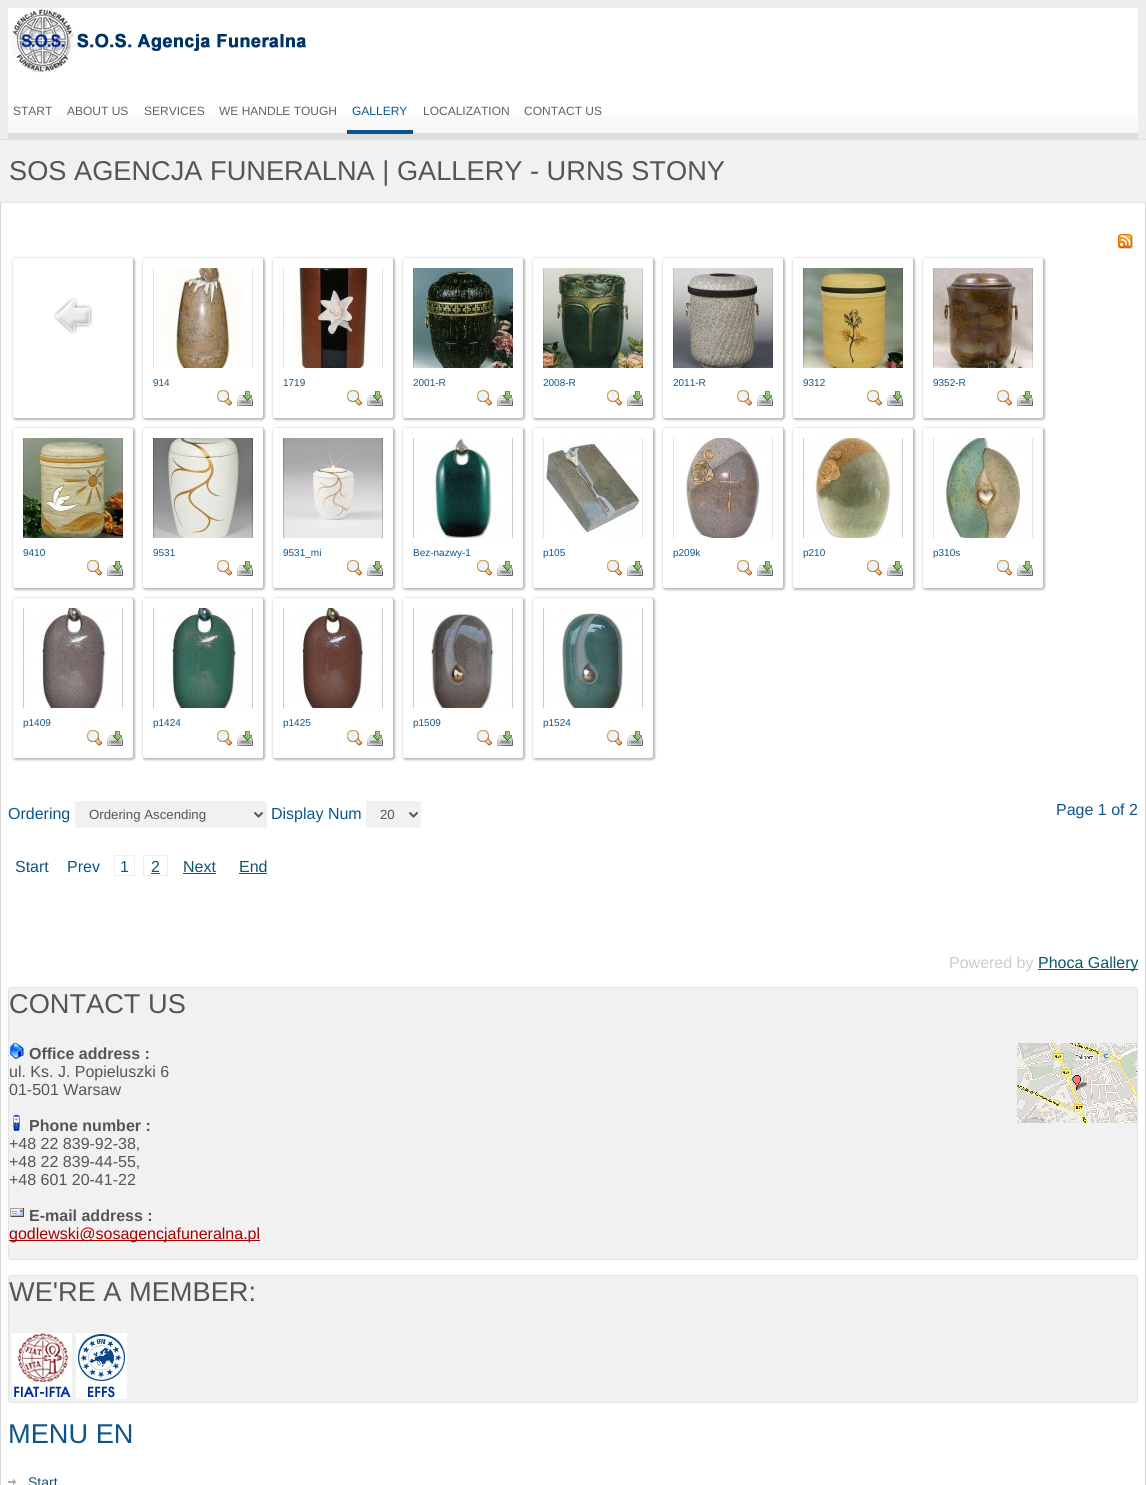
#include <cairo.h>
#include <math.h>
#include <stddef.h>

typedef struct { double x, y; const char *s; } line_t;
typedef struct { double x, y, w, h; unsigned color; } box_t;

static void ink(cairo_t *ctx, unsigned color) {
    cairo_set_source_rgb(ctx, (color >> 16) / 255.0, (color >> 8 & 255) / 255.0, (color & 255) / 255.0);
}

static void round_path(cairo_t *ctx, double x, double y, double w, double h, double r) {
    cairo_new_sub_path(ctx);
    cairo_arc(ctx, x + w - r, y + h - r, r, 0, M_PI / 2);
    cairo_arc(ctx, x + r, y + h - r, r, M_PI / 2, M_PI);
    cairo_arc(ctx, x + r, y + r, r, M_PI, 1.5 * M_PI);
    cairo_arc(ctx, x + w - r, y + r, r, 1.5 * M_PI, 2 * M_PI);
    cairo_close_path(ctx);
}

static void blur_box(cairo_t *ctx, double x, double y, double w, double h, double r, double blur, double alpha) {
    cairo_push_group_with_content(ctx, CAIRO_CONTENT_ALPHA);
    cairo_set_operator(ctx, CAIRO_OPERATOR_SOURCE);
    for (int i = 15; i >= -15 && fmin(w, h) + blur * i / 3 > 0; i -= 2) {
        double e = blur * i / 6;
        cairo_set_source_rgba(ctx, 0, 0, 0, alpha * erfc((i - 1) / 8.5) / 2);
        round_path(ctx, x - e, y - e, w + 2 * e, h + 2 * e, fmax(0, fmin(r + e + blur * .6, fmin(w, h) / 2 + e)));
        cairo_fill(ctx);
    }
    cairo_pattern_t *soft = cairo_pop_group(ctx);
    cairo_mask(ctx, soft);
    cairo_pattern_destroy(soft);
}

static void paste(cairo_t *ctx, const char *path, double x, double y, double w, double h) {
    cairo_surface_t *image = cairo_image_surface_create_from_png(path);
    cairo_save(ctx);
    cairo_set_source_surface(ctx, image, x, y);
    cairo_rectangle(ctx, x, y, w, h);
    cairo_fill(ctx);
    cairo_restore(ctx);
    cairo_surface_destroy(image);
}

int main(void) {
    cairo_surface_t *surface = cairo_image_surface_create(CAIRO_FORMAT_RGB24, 1146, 1485);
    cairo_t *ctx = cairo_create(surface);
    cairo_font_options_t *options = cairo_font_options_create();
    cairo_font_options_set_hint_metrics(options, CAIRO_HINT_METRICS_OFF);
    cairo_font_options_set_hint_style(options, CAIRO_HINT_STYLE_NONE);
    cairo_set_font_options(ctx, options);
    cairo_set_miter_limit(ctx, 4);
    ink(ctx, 0xEEEEEE);
    cairo_paint(ctx);
    ink(ctx, 0xFFFFFF);
    cairo_rectangle(ctx, 8, 8, 1130, 131);
    cairo_fill(ctx);
    paste(ctx, "media/1.png", 10, 9, 296, 64);
    paste(ctx, "media/2.png", 8, 115, 1130, 24);
    cairo_select_font_face(ctx, "Liberation Sans", CAIRO_FONT_SLANT_NORMAL, CAIRO_FONT_WEIGHT_NORMAL);
    cairo_set_font_size(ctx, 12);
    ink(ctx, 0x5B6363);
    {
        static const line_t items[] = {
            {13, 115, "START"},
            {67, 115, "ABOUT US"},
            {144, 115, "SERVICES"},
            {219, 115, "WE HANDLE TOUGH"},
        };
        for (size_t i = 0; i < sizeof items / sizeof *items; i++) {
            cairo_move_to(ctx, items[i].x, items[i].y);
            cairo_show_text(ctx, items[i].s);
        }
    }
    ink(ctx, 0x0B558A);
    cairo_rectangle(ctx, 347, 130, 66, 4);
    cairo_fill(ctx);
    cairo_move_to(ctx, 352, 115);
    cairo_show_text(ctx, "GALLERY");
    ink(ctx, 0x5B6363);
    cairo_move_to(ctx, 423, 115);
    cairo_show_text(ctx, "LOCALIZATION");
    cairo_move_to(ctx, 524, 115);
    cairo_show_text(ctx, "CONTACT US");
    {
        static const box_t items[] = {
            {1, 203, 1144, 1282, 0xFFFFFF},
            {0, 203, 1, 1282, 0xD6D6D6},
            {1145, 203, 1, 1282, 0xD6D6D6},
        };
        for (size_t i = 0; i < sizeof items / sizeof *items; i++) {
            ink(ctx, items[i].color);
            cairo_rectangle(ctx, items[i].x, items[i].y, items[i].w, items[i].h);
            cairo_fill(ctx);
        }
    }
    ink(ctx, 0xF1F1F1);
    cairo_rectangle(ctx, -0.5, 139.5, 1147, 63);
    cairo_fill_preserve(ctx);
    ink(ctx, 0xE3E3E3);
    cairo_set_line_width(ctx, 1);
    cairo_stroke(ctx);
    cairo_set_font_size(ctx, 27.2);
    ink(ctx, 0x555555);
    cairo_move_to(ctx, 9, 180);
    cairo_show_text(ctx, "SOS AGENCJA FUNERALNA | GALLERY - URNS STONY");
    paste(ctx, "media/3.png", 1118, 234, 15, 15);
    ink(ctx, 0x787878);
    blur_box(ctx, 13, 258, 122, 162, 3, 1, 0.5);
    ink(ctx, 0xFFFFFF);
    round_path(ctx, 13, 258, 120, 160, 2);
    cairo_fill(ctx);
    paste(ctx, "media/4.png", 54, 297, 39, 38);
    ink(ctx, 0x787878);
    blur_box(ctx, 143, 258, 122, 162, 3, 1, 0.5);
    ink(ctx, 0xFFFFFF);
    round_path(ctx, 143, 258, 120, 160, 2);
    cairo_fill(ctx);
    paste(ctx, "media/5.png", 153, 268, 100, 100);
    cairo_set_font_size(ctx, 10);
    ink(ctx, 0x0B558A);
    cairo_move_to(ctx, 153, 386);
    cairo_show_text(ctx, "914");
    paste(ctx, "media/6.png", 217, 390, 16, 16);
    paste(ctx, "media/7.png", 237, 391, 16, 15);
    ink(ctx, 0x787878);
    blur_box(ctx, 273, 258, 122, 162, 3, 1, 0.5);
    ink(ctx, 0xFFFFFF);
    round_path(ctx, 273, 258, 120, 160, 2);
    cairo_fill(ctx);
    paste(ctx, "media/8.png", 283, 268, 100, 100);
    ink(ctx, 0x0B558A);
    cairo_move_to(ctx, 283, 386);
    cairo_show_text(ctx, "1719");
    paste(ctx, "media/6.png", 347, 390, 16, 16);
    paste(ctx, "media/7.png", 367, 391, 16, 15);
    ink(ctx, 0x787878);
    blur_box(ctx, 403, 258, 122, 162, 3, 1, 0.5);
    ink(ctx, 0xFFFFFF);
    round_path(ctx, 403, 258, 120, 160, 2);
    cairo_fill(ctx);
    paste(ctx, "media/9.png", 413, 268, 100, 100);
    ink(ctx, 0x0B558A);
    cairo_move_to(ctx, 413, 386);
    cairo_show_text(ctx, "2001-R");
    paste(ctx, "media/6.png", 477, 390, 16, 16);
    paste(ctx, "media/7.png", 497, 391, 16, 15);
    ink(ctx, 0x787878);
    blur_box(ctx, 533, 258, 122, 162, 3, 1, 0.5);
    ink(ctx, 0xFFFFFF);
    round_path(ctx, 533, 258, 120, 160, 2);
    cairo_fill(ctx);
    paste(ctx, "media/10.png", 543, 268, 100, 100);
    ink(ctx, 0x0B558A);
    cairo_move_to(ctx, 543, 386);
    cairo_show_text(ctx, "2008-R");
    paste(ctx, "media/6.png", 607, 390, 16, 16);
    paste(ctx, "media/7.png", 627, 391, 16, 15);
    ink(ctx, 0x787878);
    blur_box(ctx, 663, 258, 122, 162, 3, 1, 0.5);
    ink(ctx, 0xFFFFFF);
    round_path(ctx, 663, 258, 120, 160, 2);
    cairo_fill(ctx);
    paste(ctx, "media/11.png", 673, 268, 100, 100);
    ink(ctx, 0x0B558A);
    cairo_move_to(ctx, 673, 386);
    cairo_show_text(ctx, "2011-R");
    paste(ctx, "media/6.png", 737, 390, 16, 16);
    paste(ctx, "media/7.png", 757, 391, 16, 15);
    ink(ctx, 0x787878);
    blur_box(ctx, 793, 258, 122, 162, 3, 1, 0.5);
    ink(ctx, 0xFFFFFF);
    round_path(ctx, 793, 258, 120, 160, 2);
    cairo_fill(ctx);
    paste(ctx, "media/12.png", 803, 268, 100, 100);
    ink(ctx, 0x0B558A);
    cairo_move_to(ctx, 803, 386);
    cairo_show_text(ctx, "9312");
    paste(ctx, "media/6.png", 867, 390, 16, 16);
    paste(ctx, "media/7.png", 887, 391, 16, 15);
    ink(ctx, 0x787878);
    blur_box(ctx, 923, 258, 122, 162, 3, 1, 0.5);
    ink(ctx, 0xFFFFFF);
    round_path(ctx, 923, 258, 120, 160, 2);
    cairo_fill(ctx);
    paste(ctx, "media/13.png", 933, 268, 100, 100);
    ink(ctx, 0x0B558A);
    cairo_move_to(ctx, 933, 386);
    cairo_show_text(ctx, "9352-R");
    paste(ctx, "media/6.png", 997, 390, 16, 16);
    paste(ctx, "media/7.png", 1017, 391, 16, 15);
    ink(ctx, 0x787878);
    blur_box(ctx, 13, 428, 122, 162, 3, 1, 0.5);
    ink(ctx, 0xFFFFFF);
    round_path(ctx, 13, 428, 120, 160, 2);
    cairo_fill(ctx);
    paste(ctx, "media/14.png", 23, 438, 100, 100);
    ink(ctx, 0x0B558A);
    cairo_move_to(ctx, 23, 556);
    cairo_show_text(ctx, "9410");
    paste(ctx, "media/6.png", 87, 560, 16, 16);
    paste(ctx, "media/7.png", 107, 561, 16, 15);
    ink(ctx, 0x787878);
    blur_box(ctx, 143, 428, 122, 162, 3, 1, 0.5);
    ink(ctx, 0xFFFFFF);
    round_path(ctx, 143, 428, 120, 160, 2);
    cairo_fill(ctx);
    paste(ctx, "media/15.png", 153, 438, 100, 100);
    ink(ctx, 0x0B558A);
    cairo_move_to(ctx, 153, 556);
    cairo_show_text(ctx, "9531");
    paste(ctx, "media/6.png", 217, 560, 16, 16);
    paste(ctx, "media/7.png", 237, 561, 16, 15);
    ink(ctx, 0x787878);
    blur_box(ctx, 273, 428, 122, 162, 3, 1, 0.5);
    ink(ctx, 0xFFFFFF);
    round_path(ctx, 273, 428, 120, 160, 2);
    cairo_fill(ctx);
    paste(ctx, "media/16.png", 283, 438, 100, 100);
    ink(ctx, 0x0B558A);
    cairo_move_to(ctx, 283, 556);
    cairo_show_text(ctx, "9531_mi");
    paste(ctx, "media/6.png", 347, 560, 16, 16);
    paste(ctx, "media/7.png", 367, 561, 16, 15);
    ink(ctx, 0x787878);
    blur_box(ctx, 403, 428, 122, 162, 3, 1, 0.5);
    ink(ctx, 0xFFFFFF);
    round_path(ctx, 403, 428, 120, 160, 2);
    cairo_fill(ctx);
    paste(ctx, "media/17.png", 413, 438, 100, 100);
    ink(ctx, 0x0B558A);
    cairo_move_to(ctx, 413, 556);
    cairo_show_text(ctx, "Bez-nazwy-1");
    paste(ctx, "media/6.png", 477, 560, 16, 16);
    paste(ctx, "media/7.png", 497, 561, 16, 15);
    ink(ctx, 0x787878);
    blur_box(ctx, 533, 428, 122, 162, 3, 1, 0.5);
    ink(ctx, 0xFFFFFF);
    round_path(ctx, 533, 428, 120, 160, 2);
    cairo_fill(ctx);
    paste(ctx, "media/18.png", 543, 438, 100, 100);
    ink(ctx, 0x0B558A);
    cairo_move_to(ctx, 543, 556);
    cairo_show_text(ctx, "p105");
    paste(ctx, "media/6.png", 607, 560, 16, 16);
    paste(ctx, "media/7.png", 627, 561, 16, 15);
    ink(ctx, 0x787878);
    blur_box(ctx, 663, 428, 122, 162, 3, 1, 0.5);
    ink(ctx, 0xFFFFFF);
    round_path(ctx, 663, 428, 120, 160, 2);
    cairo_fill(ctx);
    paste(ctx, "media/19.png", 673, 438, 100, 100);
    ink(ctx, 0x0B558A);
    cairo_move_to(ctx, 673, 556);
    cairo_show_text(ctx, "p209k");
    paste(ctx, "media/6.png", 737, 560, 16, 16);
    paste(ctx, "media/7.png", 757, 561, 16, 15);
    ink(ctx, 0x787878);
    blur_box(ctx, 793, 428, 122, 162, 3, 1, 0.5);
    ink(ctx, 0xFFFFFF);
    round_path(ctx, 793, 428, 120, 160, 2);
    cairo_fill(ctx);
    paste(ctx, "media/20.png", 803, 438, 100, 100);
    ink(ctx, 0x0B558A);
    cairo_move_to(ctx, 803, 556);
    cairo_show_text(ctx, "p210");
    paste(ctx, "media/6.png", 867, 560, 16, 16);
    paste(ctx, "media/7.png", 887, 561, 16, 15);
    ink(ctx, 0x787878);
    blur_box(ctx, 923, 428, 122, 162, 3, 1, 0.5);
    ink(ctx, 0xFFFFFF);
    round_path(ctx, 923, 428, 120, 160, 2);
    cairo_fill(ctx);
    paste(ctx, "media/21.png", 933, 438, 100, 100);
    ink(ctx, 0x0B558A);
    cairo_move_to(ctx, 933, 556);
    cairo_show_text(ctx, "p310s");
    paste(ctx, "media/6.png", 997, 560, 16, 16);
    paste(ctx, "media/7.png", 1017, 561, 16, 15);
    ink(ctx, 0x787878);
    blur_box(ctx, 13, 598, 122, 162, 3, 1, 0.5);
    ink(ctx, 0xFFFFFF);
    round_path(ctx, 13, 598, 120, 160, 2);
    cairo_fill(ctx);
    paste(ctx, "media/22.png", 23, 608, 100, 100);
    ink(ctx, 0x0B558A);
    cairo_move_to(ctx, 23, 726);
    cairo_show_text(ctx, "p1409");
    paste(ctx, "media/6.png", 87, 730, 16, 16);
    paste(ctx, "media/7.png", 107, 731, 16, 15);
    ink(ctx, 0x787878);
    blur_box(ctx, 143, 598, 122, 162, 3, 1, 0.5);
    ink(ctx, 0xFFFFFF);
    round_path(ctx, 143, 598, 120, 160, 2);
    cairo_fill(ctx);
    paste(ctx, "media/23.png", 153, 608, 100, 100);
    ink(ctx, 0x0B558A);
    cairo_move_to(ctx, 153, 726);
    cairo_show_text(ctx, "p1424");
    paste(ctx, "media/6.png", 217, 730, 16, 16);
    paste(ctx, "media/7.png", 237, 731, 16, 15);
    ink(ctx, 0x787878);
    blur_box(ctx, 273, 598, 122, 162, 3, 1, 0.5);
    ink(ctx, 0xFFFFFF);
    round_path(ctx, 273, 598, 120, 160, 2);
    cairo_fill(ctx);
    paste(ctx, "media/24.png", 283, 608, 100, 100);
    ink(ctx, 0x0B558A);
    cairo_move_to(ctx, 283, 726);
    cairo_show_text(ctx, "p1425");
    paste(ctx, "media/6.png", 347, 730, 16, 16);
    paste(ctx, "media/7.png", 367, 731, 16, 15);
    ink(ctx, 0x787878);
    blur_box(ctx, 403, 598, 122, 162, 3, 1, 0.5);
    ink(ctx, 0xFFFFFF);
    round_path(ctx, 403, 598, 120, 160, 2);
    cairo_fill(ctx);
    paste(ctx, "media/25.png", 413, 608, 100, 100);
    ink(ctx, 0x0B558A);
    cairo_move_to(ctx, 413, 726);
    cairo_show_text(ctx, "p1509");
    paste(ctx, "media/6.png", 477, 730, 16, 16);
    paste(ctx, "media/7.png", 497, 731, 16, 15);
    ink(ctx, 0x787878);
    blur_box(ctx, 533, 598, 122, 162, 3, 1, 0.5);
    ink(ctx, 0xFFFFFF);
    round_path(ctx, 533, 598, 120, 160, 2);
    cairo_fill(ctx);
    paste(ctx, "media/26.png", 543, 608, 100, 100);
    ink(ctx, 0x0B558A);
    cairo_move_to(ctx, 543, 726);
    cairo_show_text(ctx, "p1524");
    paste(ctx, "media/6.png", 607, 730, 16, 16);
    paste(ctx, "media/7.png", 627, 731, 16, 15);
    cairo_set_font_size(ctx, 16);
    cairo_move_to(ctx, 8, 819);
    cairo_show_text(ctx, "Ordering");
    ink(ctx, 0xF1F1F1);
    cairo_rectangle(ctx, 75, 801, 192, 27);
    cairo_fill(ctx);
    cairo_new_path(ctx);
    cairo_move_to(ctx, 254.5, 812.5);
    cairo_line_to(ctx, 258.5, 816.5);
    cairo_line_to(ctx, 262.5, 812.5);
    ink(ctx, 0x555555);
    cairo_set_line_width(ctx, 2);
    cairo_stroke(ctx);
    cairo_set_font_size(ctx, 13.25);
    cairo_move_to(ctx, 89, 819);
    cairo_show_text(ctx, "Ordering Ascending");
    cairo_set_font_size(ctx, 16);
    ink(ctx, 0x0B558A);
    cairo_move_to(ctx, 271, 819);
    cairo_show_text(ctx, "Display Num");
    ink(ctx, 0xF1F1F1);
    cairo_rectangle(ctx, 366, 801, 55, 27);
    cairo_fill(ctx);
    cairo_new_path(ctx);
    cairo_move_to(ctx, 409.5, 812.5);
    cairo_line_to(ctx, 413.5, 816.5);
    cairo_line_to(ctx, 417.5, 812.5);
    ink(ctx, 0x555555);
    cairo_stroke(ctx);
    cairo_set_font_size(ctx, 13.25);
    cairo_move_to(ctx, 380, 819);
    cairo_show_text(ctx, "20");
    cairo_set_font_size(ctx, 16);
    ink(ctx, 0x0B558A);
    {
        static const line_t items[] = {
            {1056, 815, "Page 1 of 2"},
            {15, 872, "Start"},
            {67, 872, "Prev"},
        };
        for (size_t i = 0; i < sizeof items / sizeof *items; i++) {
            cairo_move_to(ctx, items[i].x, items[i].y);
            cairo_show_text(ctx, items[i].s);
        }
    }
    cairo_rectangle(ctx, 114.5, 855.5, 20, 20);
    ink(ctx, 0xEEEEEE);
    cairo_set_line_width(ctx, 1);
    cairo_stroke(ctx);
    ink(ctx, 0x0B558A);
    cairo_move_to(ctx, 120, 872);
    cairo_show_text(ctx, "1");
    cairo_rectangle(ctx, 143.5, 855.5, 24, 20);
    ink(ctx, 0xEEEEEE);
    cairo_stroke(ctx);
    ink(ctx, 0x09576B);
    cairo_move_to(ctx, 151, 872);
    cairo_show_text(ctx, "2");
    cairo_rectangle(ctx, 151, 873, 9, 1);
    cairo_fill(ctx);
    cairo_move_to(ctx, 183, 872);
    cairo_show_text(ctx, "Next");
    cairo_rectangle(ctx, 183, 873, 33, 1);
    cairo_fill(ctx);
    cairo_move_to(ctx, 239, 872);
    cairo_show_text(ctx, "End");
    cairo_rectangle(ctx, 239, 873, 28, 1);
    cairo_fill(ctx);
    ink(ctx, 0xCCCCCC);
    cairo_move_to(ctx, 949, 968);
    cairo_show_text(ctx, "Powered by");
    ink(ctx, 0x09576B);
    cairo_rectangle(ctx, 1038, 969, 100, 1);
    cairo_fill(ctx);
    cairo_move_to(ctx, 1038, 968);
    cairo_show_text(ctx, "Phoca Gallery");
    ink(ctx, 0xF1F1F1);
    round_path(ctx, 8.5, 987.5, 1129, 272, 2.5);
    cairo_fill_preserve(ctx);
    ink(ctx, 0xE3E3E3);
    cairo_stroke(ctx);
    cairo_set_font_size(ctx, 27.2);
    ink(ctx, 0x555555);
    cairo_move_to(ctx, 9, 1013);
    cairo_show_text(ctx, "CONTACT US");
    paste(ctx, "media/27.png", 10, 1043, 14, 16);
    cairo_select_font_face(ctx, "Liberation Sans", CAIRO_FONT_SLANT_NORMAL, CAIRO_FONT_WEIGHT_BOLD);
    cairo_set_font_size(ctx, 16);
    cairo_move_to(ctx, 29, 1059);
    cairo_show_text(ctx, "Office address :");
    paste(ctx, "media/28.png", 1017, 1043, 120, 80);
    cairo_select_font_face(ctx, "Liberation Sans", CAIRO_FONT_SLANT_NORMAL, CAIRO_FONT_WEIGHT_NORMAL);
    cairo_move_to(ctx, 9, 1077);
    cairo_show_text(ctx, "ul. Ks. J. Popieluszki 6");
    cairo_move_to(ctx, 9, 1095);
    cairo_show_text(ctx, "01-501 Warsaw");
    paste(ctx, "media/29.png", 13, 1115, 7, 16);
    cairo_select_font_face(ctx, "Liberation Sans", CAIRO_FONT_SLANT_NORMAL, CAIRO_FONT_WEIGHT_BOLD);
    cairo_move_to(ctx, 29, 1131);
    cairo_show_text(ctx, "Phone number :");
    cairo_select_font_face(ctx, "Liberation Sans", CAIRO_FONT_SLANT_NORMAL, CAIRO_FONT_WEIGHT_NORMAL);
    {
        static const line_t items[] = {
            {9, 1149, "+48 22 839-92-38,"},
            {9, 1167, "+48 22 839-44-55,"},
            {9, 1185, "+48 601 20-41-22"},
        };
        for (size_t i = 0; i < sizeof items / sizeof *items; i++) {
            cairo_move_to(ctx, items[i].x, items[i].y);
            cairo_show_text(ctx, items[i].s);
        }
    }
    paste(ctx, "media/30.png", 10, 1208, 14, 9);
    cairo_select_font_face(ctx, "Liberation Sans", CAIRO_FONT_SLANT_NORMAL, CAIRO_FONT_WEIGHT_BOLD);
    cairo_move_to(ctx, 29, 1221);
    cairo_show_text(ctx, "E-mail address :");
    ink(ctx, 0xA70000);
    cairo_rectangle(ctx, 9, 1240, 251, 1);
    cairo_fill(ctx);
    cairo_select_font_face(ctx, "Liberation Sans", CAIRO_FONT_SLANT_NORMAL, CAIRO_FONT_WEIGHT_NORMAL);
    cairo_move_to(ctx, 9, 1239);
    cairo_show_text(ctx, "godlewski@sosagencjafuneralna.pl");
    ink(ctx, 0xF1F1F1);
    round_path(ctx, 8.5, 1275.5, 1129, 127, 2.5);
    cairo_fill_preserve(ctx);
    ink(ctx, 0xE3E3E3);
    cairo_stroke(ctx);
    cairo_set_font_size(ctx, 27.2);
    ink(ctx, 0x555555);
    cairo_move_to(ctx, 9, 1301);
    cairo_show_text(ctx, "WE'RE A MEMBER:");
    paste(ctx, "media/31.png", 12, 1333, 60, 66);
    paste(ctx, "media/32.png", 76, 1333, 51, 66);
    ink(ctx, 0x0B558A);
    cairo_move_to(ctx, 8, 1443);
    cairo_show_text(ctx, "MENU EN");
    paste(ctx, "media/33.png", 8, 1479, 8, 6);
    cairo_set_font_size(ctx, 14);
    cairo_move_to(ctx, 28, 1487);
    cairo_show_text(ctx, "Start");
    cairo_surface_write_to_png(surface, "image.png");
    cairo_font_options_destroy(options);
    cairo_destroy(ctx);
    cairo_surface_destroy(surface);
    return 0;
}
